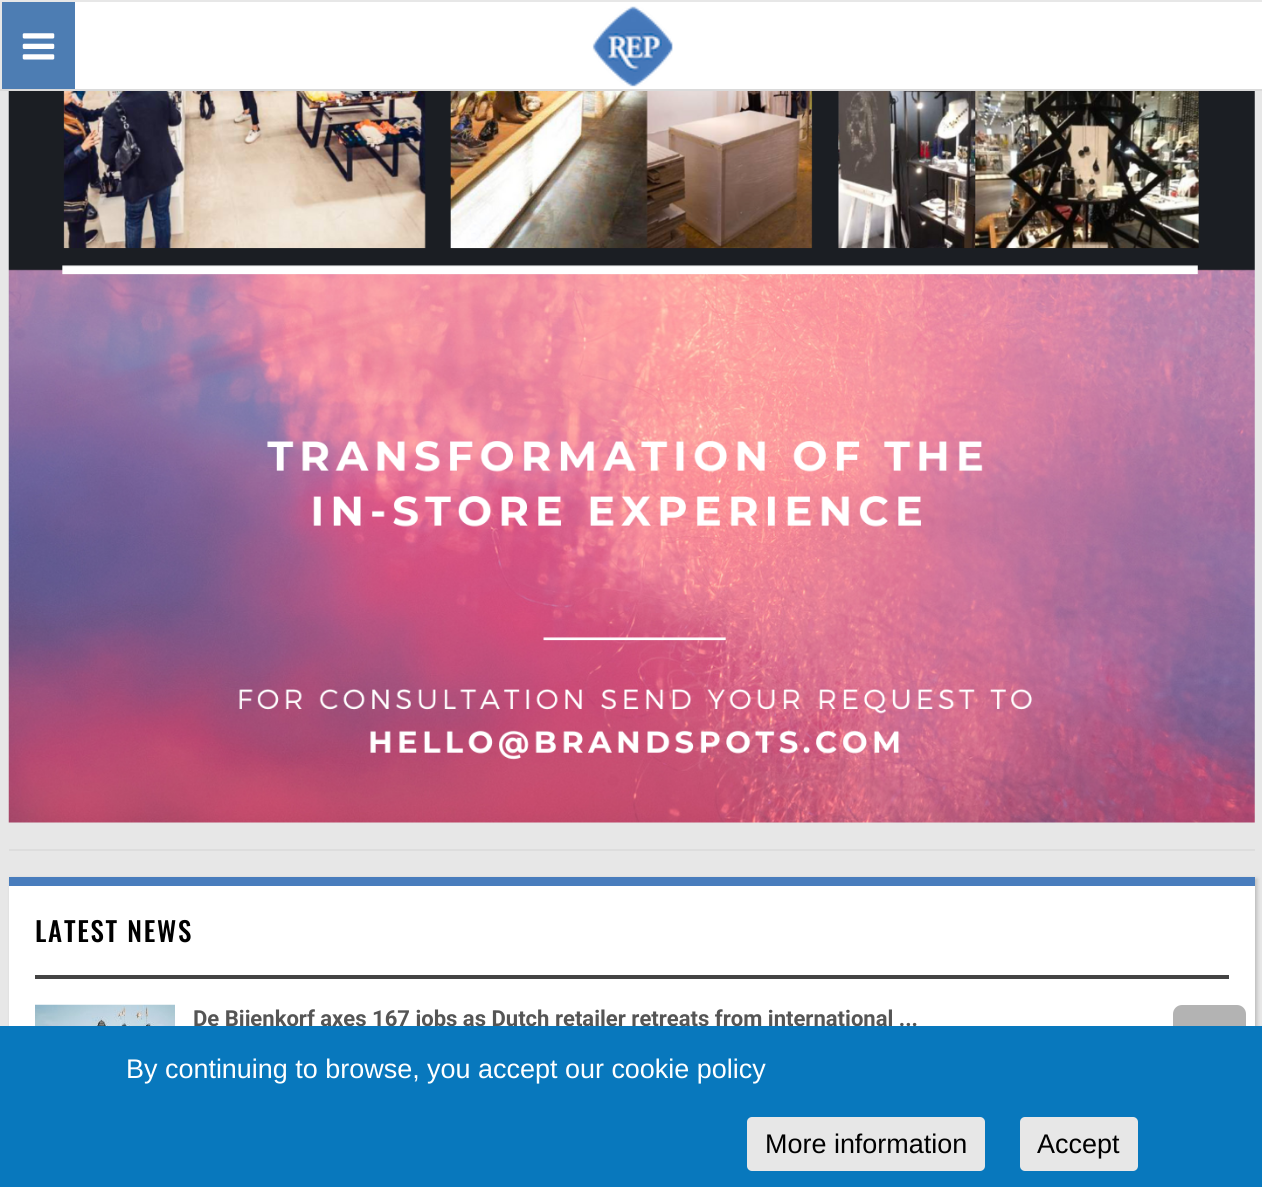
#include <cairo.h>
#include <math.h>
#include <stddef.h>

typedef struct { double x, y, w, h; unsigned color; } box_t;

static void ink(cairo_t *ctx, unsigned color) {
    cairo_set_source_rgb(ctx, (color >> 16) / 255.0, (color >> 8 & 255) / 255.0, (color & 255) / 255.0);
}

static void write_spaced(cairo_t *ctx, double x, double y, const char *s, double letter, double word) {
    cairo_move_to(ctx, x, y);
    while (*s) {
        char ch[5] = {0};
        int n = 0;
        do ch[n++] = *s++; while ((*s & 0xC0) == 0x80);
        cairo_show_text(ctx, ch);
        cairo_rel_move_to(ctx, letter + word * (*ch == ' '), 0);
    }
}

static void round_path(cairo_t *ctx, double x, double y, double w, double h, double r) {
    cairo_new_sub_path(ctx);
    cairo_arc(ctx, x + w - r, y + h - r, r, 0, M_PI / 2);
    cairo_arc(ctx, x + r, y + h - r, r, M_PI / 2, M_PI);
    cairo_arc(ctx, x + r, y + r, r, M_PI, 1.5 * M_PI);
    cairo_arc(ctx, x + w - r, y + r, r, 1.5 * M_PI, 2 * M_PI);
    cairo_close_path(ctx);
}

static void blur_box(cairo_t *ctx, double x, double y, double w, double h, double r, double blur, double alpha) {
    cairo_push_group_with_content(ctx, CAIRO_CONTENT_ALPHA);
    cairo_set_operator(ctx, CAIRO_OPERATOR_SOURCE);
    for (int i = 15; i >= -15 && fmin(w, h) + blur * i / 3 > 0; i -= 2) {
        double e = blur * i / 6;
        cairo_set_source_rgba(ctx, 0, 0, 0, alpha * erfc((i - 1) / 8.5) / 2);
        round_path(ctx, x - e, y - e, w + 2 * e, h + 2 * e, fmax(0, fmin(r + e + blur * .6, fmin(w, h) / 2 + e)));
        cairo_fill(ctx);
    }
    cairo_pattern_t *soft = cairo_pop_group(ctx);
    cairo_mask(ctx, soft);
    cairo_pattern_destroy(soft);
}

static void paste(cairo_t *ctx, const char *path, double x, double y, double w, double h) {
    cairo_surface_t *image = cairo_image_surface_create_from_png(path);
    cairo_save(ctx);
    cairo_set_source_surface(ctx, image, x, y);
    cairo_rectangle(ctx, x, y, w, h);
    cairo_fill(ctx);
    cairo_restore(ctx);
    cairo_surface_destroy(image);
}

int main(void) {
    cairo_surface_t *surface = cairo_image_surface_create(CAIRO_FORMAT_RGB24, 1262, 1187);
    cairo_t *ctx = cairo_create(surface);
    cairo_font_options_t *options = cairo_font_options_create();
    cairo_font_options_set_hint_metrics(options, CAIRO_HINT_METRICS_OFF);
    cairo_font_options_set_hint_style(options, CAIRO_HINT_STYLE_NONE);
    cairo_set_font_options(ctx, options);
    cairo_set_miter_limit(ctx, 4);
    ink(ctx, 0xE7E7E7);
    cairo_paint(ctx);
    {
        static const box_t items[] = {
            {75, 2, 1187, 87, 0xFFFFFF},
            {0, 89, 1262, 2, 0xDADADA},
            {2, 2, 73, 87, 0x4D7DB3},
        };
        for (size_t i = 0; i < sizeof items / sizeof *items; i++) {
            ink(ctx, items[i].color);
            cairo_rectangle(ctx, items[i].x, items[i].y, items[i].w, items[i].h);
            cairo_fill(ctx);
        }
    }
    paste(ctx, "media/1.png", 22, 33, 33, 27);
    paste(ctx, "media/2.png", 592, 6, 81, 81);
    paste(ctx, "media/3.png", 8, 91, 1247, 732);
    ink(ctx, 0xDDDDDD);
    cairo_rectangle(ctx, 9, 849, 1246, 2);
    cairo_fill(ctx);
    ink(ctx, 0x000000);
    blur_box(ctx, 11, 879, 1246, 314, 0, 2, 0.2);
    ink(ctx, 0xFFFFFF);
    cairo_rectangle(ctx, 9, 886, 1246, 140);
    cairo_fill(ctx);
    ink(ctx, 0x497DBD);
    cairo_rectangle(ctx, 9, 877, 1246, 9);
    cairo_fill(ctx);
    cairo_select_font_face(ctx, "Oswald Medium", CAIRO_FONT_SLANT_NORMAL, CAIRO_FONT_WEIGHT_NORMAL);
    cairo_set_font_size(ctx, 26.95);
    ink(ctx, 0x000000);
    write_spaced(ctx, 35, 942, "LATEST NEWS", 1.75, 0);
    ink(ctx, 0x444444);
    cairo_rectangle(ctx, 35, 975, 1194, 4);
    cairo_fill(ctx);
    paste(ctx, "media/4.png", 35, 1004, 140, 22);
    cairo_select_font_face(ctx, "Roboto", CAIRO_FONT_SLANT_NORMAL, CAIRO_FONT_WEIGHT_BOLD);
    cairo_set_font_size(ctx, 22.05);
    ink(ctx, 0x555555);
    cairo_move_to(ctx, 193, 1026);
    cairo_show_text(ctx, "De Bijenkorf axes 167 jobs as Dutch retailer retreats from international ...");
    ink(ctx, 0xB3B3B3);
    round_path(ctx, 1173, 1005, 73, 78, 9);
    cairo_fill(ctx);
    ink(ctx, 0x0878BD);
    cairo_rectangle(ctx, 0, 1026, 1262, 161);
    cairo_fill(ctx);
    cairo_select_font_face(ctx, "Liberation Sans", CAIRO_FONT_SLANT_NORMAL, CAIRO_FONT_WEIGHT_NORMAL);
    cairo_set_font_size(ctx, 26.95);
    ink(ctx, 0xFFFFFF);
    cairo_move_to(ctx, 126, 1078);
    cairo_show_text(ctx, "By continuing to browse, you accept our cookie policy");
    ink(ctx, 0xE7E7E7);
    round_path(ctx, 747, 1117, 238, 54, 5);
    cairo_fill(ctx);
    ink(ctx, 0x000000);
    cairo_move_to(ctx, 765, 1153);
    cairo_show_text(ctx, "More information");
    ink(ctx, 0xE7E7E7);
    round_path(ctx, 1020, 1117, 118, 54, 5);
    cairo_fill(ctx);
    ink(ctx, 0x000000);
    cairo_move_to(ctx, 1037, 1153);
    cairo_show_text(ctx, "Accept");
    cairo_surface_write_to_png(surface, "image.png");
    cairo_font_options_destroy(options);
    cairo_destroy(ctx);
    cairo_surface_destroy(surface);
    return 0;
}
